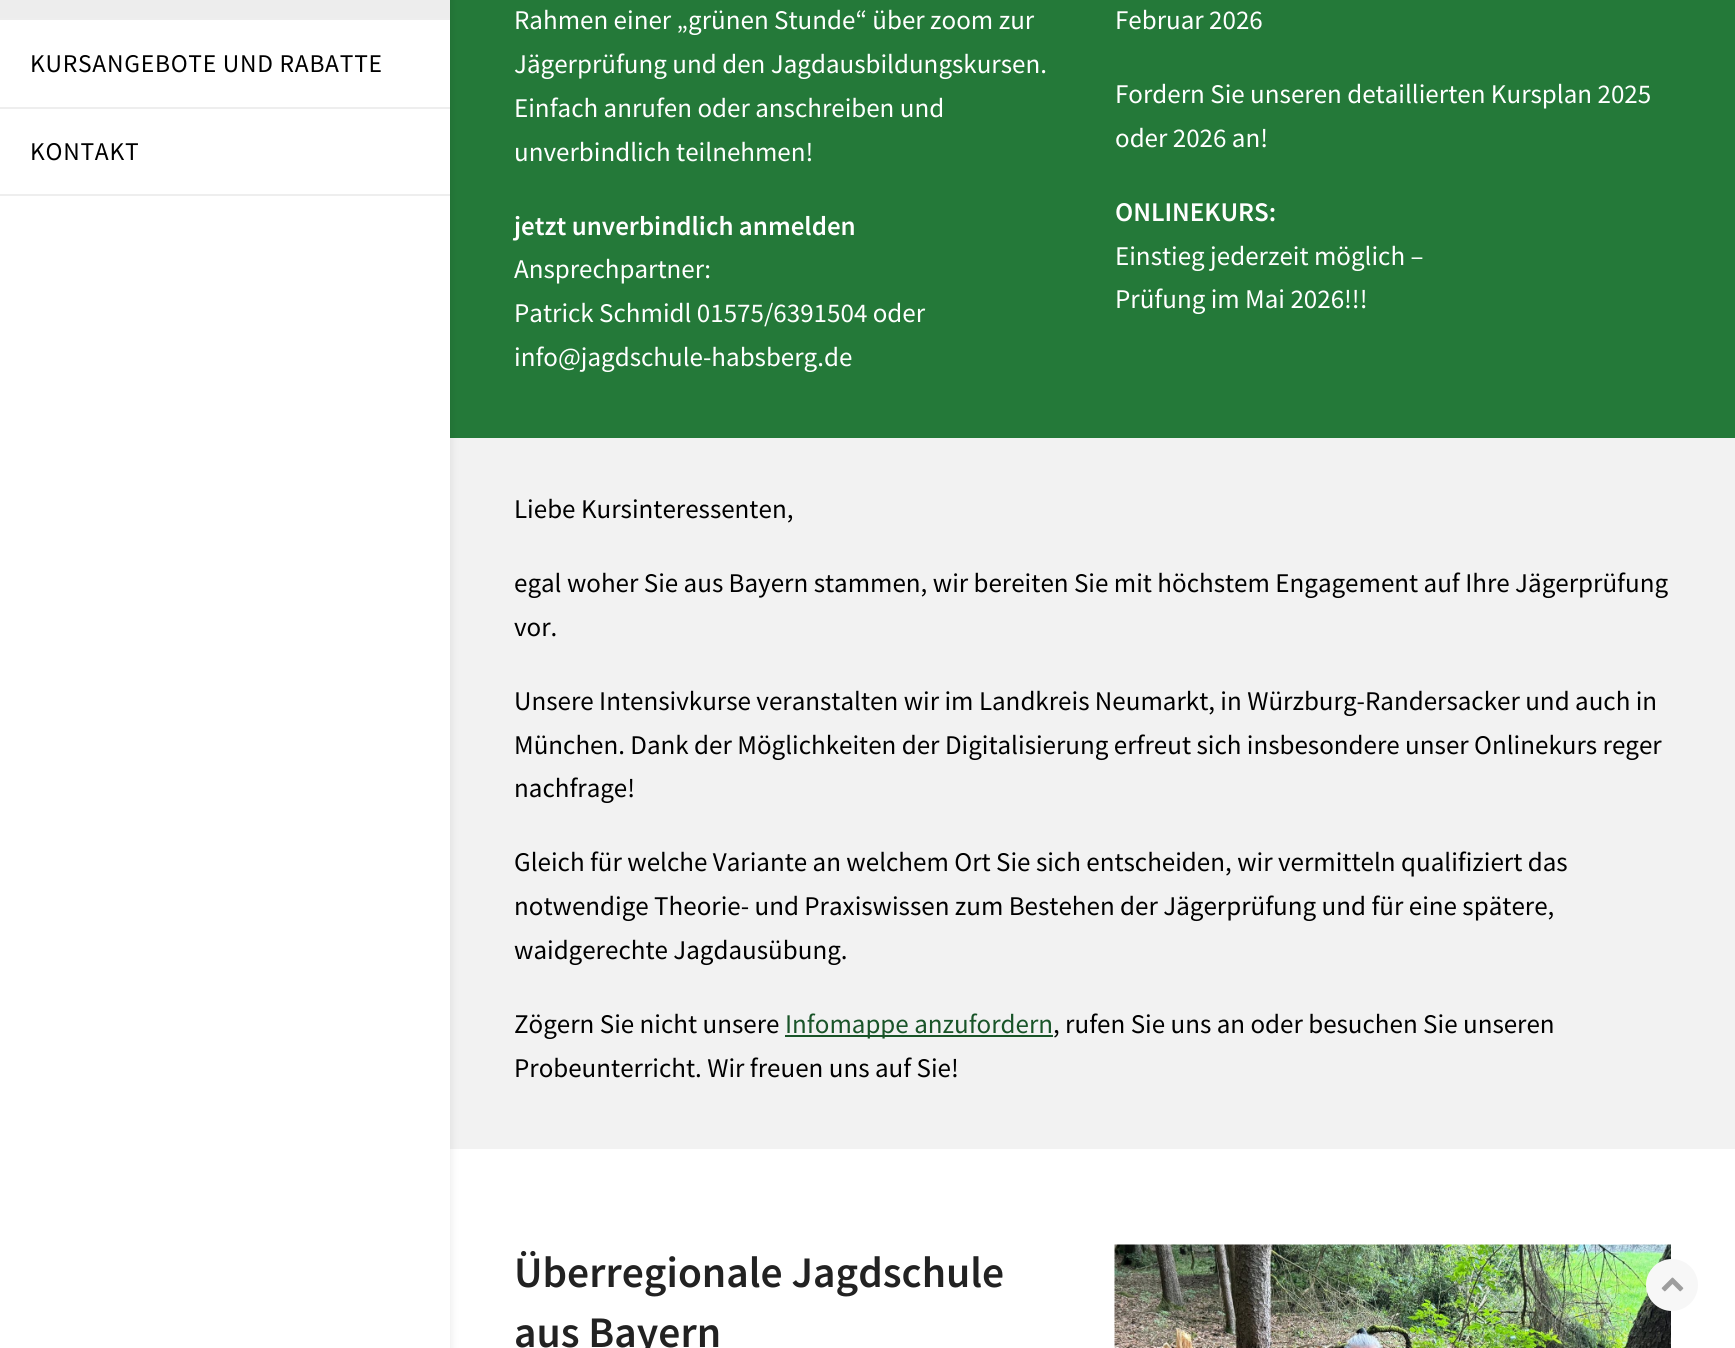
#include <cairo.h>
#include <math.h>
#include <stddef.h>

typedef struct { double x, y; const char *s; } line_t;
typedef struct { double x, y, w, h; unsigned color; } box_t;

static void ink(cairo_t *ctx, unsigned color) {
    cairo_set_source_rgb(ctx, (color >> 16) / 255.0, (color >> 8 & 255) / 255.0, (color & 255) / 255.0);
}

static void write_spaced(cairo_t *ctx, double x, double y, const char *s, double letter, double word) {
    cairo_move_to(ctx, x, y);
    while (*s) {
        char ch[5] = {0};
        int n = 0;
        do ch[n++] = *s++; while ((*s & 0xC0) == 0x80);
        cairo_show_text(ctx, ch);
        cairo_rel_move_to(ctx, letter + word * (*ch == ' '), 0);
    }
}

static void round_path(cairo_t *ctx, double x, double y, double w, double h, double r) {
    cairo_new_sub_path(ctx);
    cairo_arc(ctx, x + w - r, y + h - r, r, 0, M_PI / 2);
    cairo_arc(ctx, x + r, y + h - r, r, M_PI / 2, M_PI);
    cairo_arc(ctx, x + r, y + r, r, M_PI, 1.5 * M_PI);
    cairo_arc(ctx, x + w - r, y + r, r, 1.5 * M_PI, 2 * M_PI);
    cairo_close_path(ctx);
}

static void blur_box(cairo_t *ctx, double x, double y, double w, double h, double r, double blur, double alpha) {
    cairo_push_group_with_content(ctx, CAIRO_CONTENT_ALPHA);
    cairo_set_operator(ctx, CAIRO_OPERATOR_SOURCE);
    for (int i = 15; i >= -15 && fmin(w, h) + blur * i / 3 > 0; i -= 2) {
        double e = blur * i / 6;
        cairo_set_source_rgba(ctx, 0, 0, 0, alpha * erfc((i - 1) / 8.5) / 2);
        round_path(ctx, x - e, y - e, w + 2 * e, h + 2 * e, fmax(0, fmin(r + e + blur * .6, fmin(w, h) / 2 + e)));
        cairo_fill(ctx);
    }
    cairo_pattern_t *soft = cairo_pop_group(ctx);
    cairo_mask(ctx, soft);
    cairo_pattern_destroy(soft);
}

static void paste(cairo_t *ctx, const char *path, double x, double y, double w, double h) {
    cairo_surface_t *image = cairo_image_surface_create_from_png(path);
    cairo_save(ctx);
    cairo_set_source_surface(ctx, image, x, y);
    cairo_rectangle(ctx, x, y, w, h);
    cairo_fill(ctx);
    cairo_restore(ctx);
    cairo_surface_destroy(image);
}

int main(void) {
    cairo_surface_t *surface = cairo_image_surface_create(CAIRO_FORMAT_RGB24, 1735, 1348);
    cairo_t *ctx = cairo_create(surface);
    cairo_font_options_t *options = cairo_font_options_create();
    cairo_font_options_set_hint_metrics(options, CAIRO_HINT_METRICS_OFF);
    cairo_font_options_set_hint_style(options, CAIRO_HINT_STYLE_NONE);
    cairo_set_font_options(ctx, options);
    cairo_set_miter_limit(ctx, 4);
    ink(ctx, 0xFFFFFF);
    cairo_paint(ctx);
    ink(ctx, 0x247939);
    cairo_rectangle(ctx, 450, 0, 1285, 438);
    cairo_fill(ctx);
    ink(ctx, 0xF2F2F2);
    cairo_rectangle(ctx, 450, 438, 1285, 711);
    cairo_fill(ctx);
    ink(ctx, 0x000000);
    blur_box(ctx, 0, -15, 450, 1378, 0, 5, 0.1);
    {
        static const box_t items[] = {
            {0, 20, 450, 1328, 0xFFFFFF},
            {0, 18, 450, 2, 0xEEEEEE},
            {0, 0, 450, 18, 0xEDEDED},
            {0, 107, 450, 2, 0xEEEEEE},
        };
        for (size_t i = 0; i < sizeof items / sizeof *items; i++) {
            ink(ctx, items[i].color);
            cairo_rectangle(ctx, items[i].x, items[i].y, items[i].w, items[i].h);
            cairo_fill(ctx);
        }
    }
    cairo_select_font_face(ctx, "Source Sans Pro", CAIRO_FONT_SLANT_NORMAL, CAIRO_FONT_WEIGHT_NORMAL);
    cairo_set_font_size(ctx, 25.5);
    ink(ctx, 0x000000);
    write_spaced(ctx, 30, 72, "KURSANGEBOTE UND RABATTE", 0.75, 0);
    ink(ctx, 0xEEEEEE);
    cairo_rectangle(ctx, 0, 194, 450, 2);
    cairo_fill(ctx);
    ink(ctx, 0x000000);
    write_spaced(ctx, 30, 160, "KONTAKT", 0.75, 0);
    cairo_set_font_size(ctx, 27);
    ink(ctx, 0xFFFFFF);
    {
        static const line_t items[] = {
            {514, 29, "Rahmen einer „grünen Stunde“ über zoom zur"},
            {514, 73, "Jägerprüfung und den Jagdausbildungskursen."},
            {514, 117, "Einfach anrufen oder anschreiben und"},
            {514, 161, "unverbindlich teilnehmen!"},
        };
        for (size_t i = 0; i < sizeof items / sizeof *items; i++) {
            cairo_move_to(ctx, items[i].x, items[i].y);
            cairo_show_text(ctx, items[i].s);
        }
    }
    cairo_select_font_face(ctx, "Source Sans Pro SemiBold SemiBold", CAIRO_FONT_SLANT_NORMAL, CAIRO_FONT_WEIGHT_NORMAL);
    cairo_move_to(ctx, 514, 235);
    cairo_show_text(ctx, "jetzt unverbindlich anmelden");
    cairo_select_font_face(ctx, "Source Sans Pro", CAIRO_FONT_SLANT_NORMAL, CAIRO_FONT_WEIGHT_NORMAL);
    {
        static const line_t items[] = {
            {514, 278, "Ansprechpartner:"},
            {514, 322, "Patrick Schmidl 01575/6391504 oder"},
            {514, 366, "info@jagdschule-habsberg.de"},
            {1115, 29, "Februar 2026"},
            {1115, 103, "Fordern Sie unseren detaillierten Kursplan 2025"},
            {1115, 147, "oder 2026 an!"},
        };
        for (size_t i = 0; i < sizeof items / sizeof *items; i++) {
            cairo_move_to(ctx, items[i].x, items[i].y);
            cairo_show_text(ctx, items[i].s);
        }
    }
    cairo_select_font_face(ctx, "Source Sans Pro SemiBold SemiBold", CAIRO_FONT_SLANT_NORMAL, CAIRO_FONT_WEIGHT_NORMAL);
    cairo_move_to(ctx, 1115, 221);
    cairo_show_text(ctx, "ONLINEKURS:");
    cairo_select_font_face(ctx, "Source Sans Pro", CAIRO_FONT_SLANT_NORMAL, CAIRO_FONT_WEIGHT_NORMAL);
    cairo_move_to(ctx, 1115, 265);
    cairo_show_text(ctx, "Einstieg jederzeit möglich –");
    cairo_move_to(ctx, 1115, 308);
    cairo_show_text(ctx, "Prüfung im Mai 2026!!!");
    ink(ctx, 0x000000);
    {
        static const line_t items[] = {
            {514, 518, "Liebe Kursinteressenten,"},
            {514, 592, "egal woher Sie aus Bayern stammen, wir bereiten Sie mit höchstem Engagement auf Ihre Jägerprüfung"},
            {514, 636, "vor."},
            {514, 710, "Unsere Intensivkurse veranstalten wir im Landkreis Neumarkt, in Würzburg-Randersacker und auch in"},
            {514, 754, "München. Dank der Möglichkeiten der Digitalisierung erfreut sich insbesondere unser Onlinekurs reger"},
            {514, 797, "nachfrage!"},
            {514, 871, "Gleich für welche Variante an welchem Ort Sie sich entscheiden, wir vermitteln qualifiziert das"},
            {514, 915, "notwendige Theorie- und Praxiswissen zum Bestehen der Jägerprüfung und für eine spätere,"},
            {514, 959, "waidgerechte Jagdausübung."},
            {514, 1033, "Zögern Sie nicht unsere"},
        };
        for (size_t i = 0; i < sizeof items / sizeof *items; i++) {
            cairo_move_to(ctx, items[i].x, items[i].y);
            cairo_show_text(ctx, items[i].s);
        }
    }
    ink(ctx, 0x195428);
    cairo_rectangle(ctx, 785, 1035, 268, 2);
    cairo_fill(ctx);
    cairo_move_to(ctx, 785, 1033);
    cairo_show_text(ctx, "Infomappe anzufordern");
    ink(ctx, 0x000000);
    cairo_move_to(ctx, 1053, 1033);
    cairo_show_text(ctx, ", rufen Sie uns an oder besuchen Sie unseren");
    cairo_move_to(ctx, 514, 1077);
    cairo_show_text(ctx, "Probeunterricht. Wir freuen uns auf Sie!");
    cairo_select_font_face(ctx, "Source Sans Pro SemiBold SemiBold", CAIRO_FONT_SLANT_NORMAL, CAIRO_FONT_WEIGHT_NORMAL);
    cairo_set_font_size(ctx, 43.6);
    ink(ctx, 0x222222);
    cairo_move_to(ctx, 514, 1287);
    cairo_show_text(ctx, "Überregionale Jagdschule");
    cairo_move_to(ctx, 514, 1347);
    cairo_show_text(ctx, "aus Bayern");
    paste(ctx, "media/1.png", 1114, 1244, 557, 104);
    ink(ctx, 0xF7F7F7);
    cairo_arc(ctx, 1672, 1285, 26, 0, 2 * M_PI);
    cairo_fill(ctx);
    paste(ctx, "media/2.png", 1661, 1277, 23, 15);
    cairo_surface_write_to_png(surface, "image.png");
    cairo_font_options_destroy(options);
    cairo_destroy(ctx);
    cairo_surface_destroy(surface);
    return 0;
}
